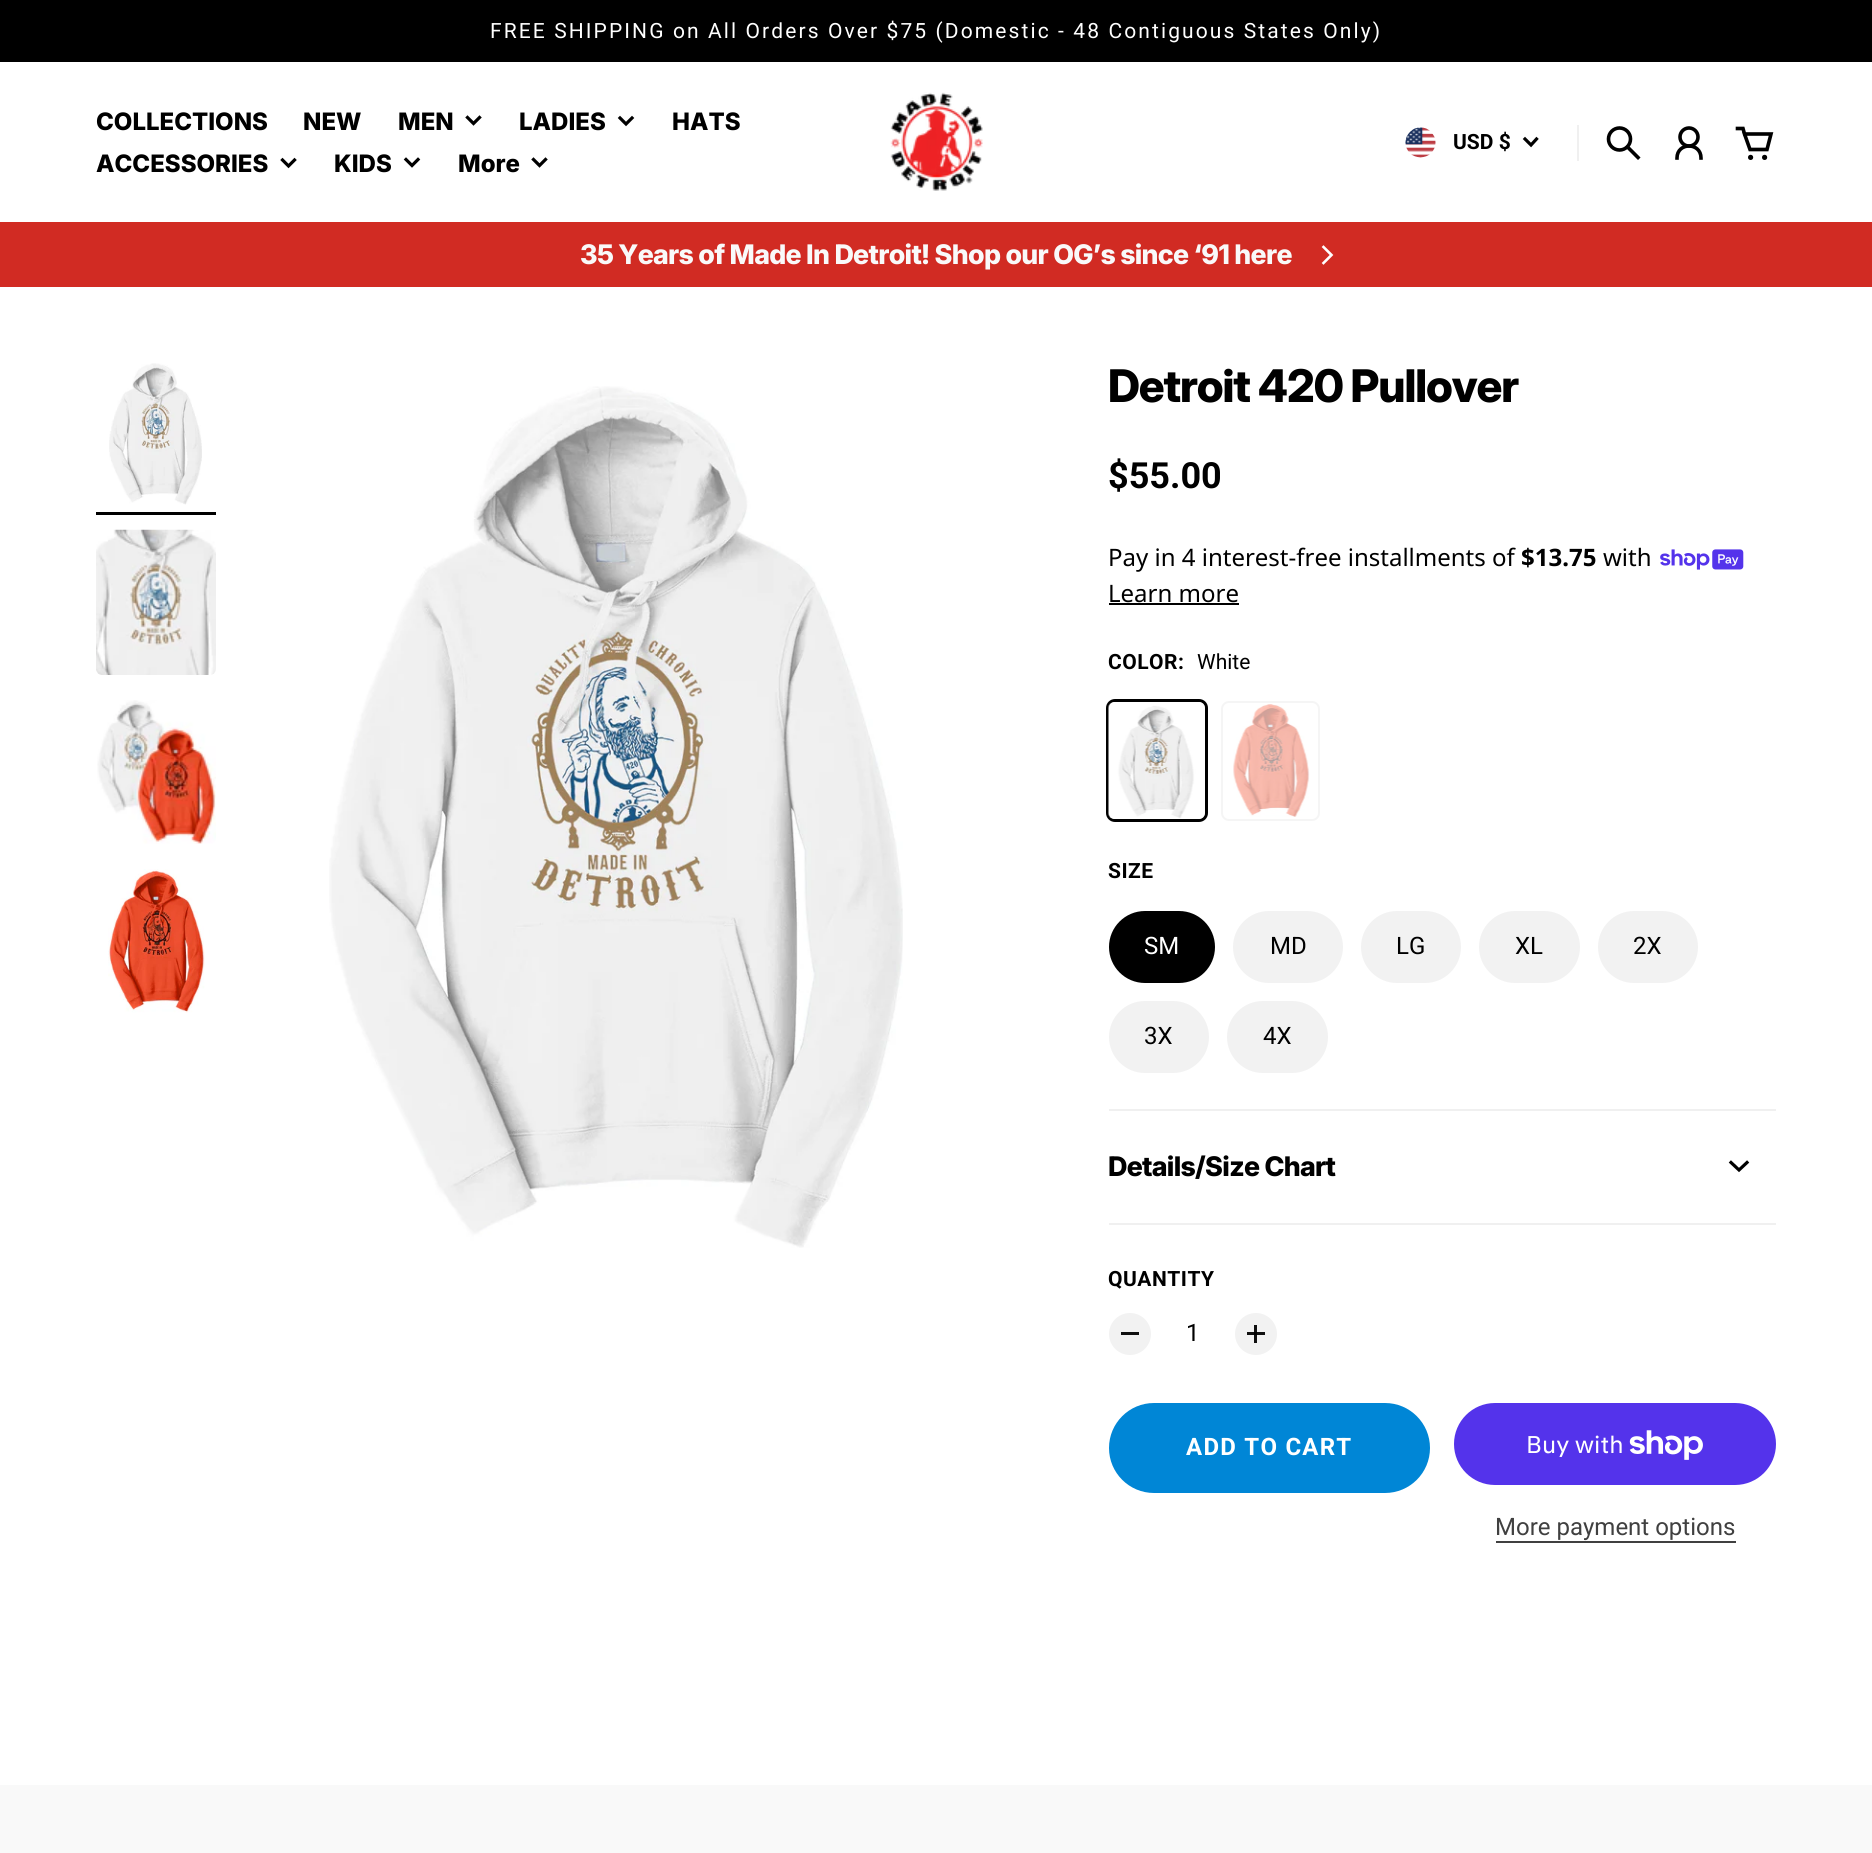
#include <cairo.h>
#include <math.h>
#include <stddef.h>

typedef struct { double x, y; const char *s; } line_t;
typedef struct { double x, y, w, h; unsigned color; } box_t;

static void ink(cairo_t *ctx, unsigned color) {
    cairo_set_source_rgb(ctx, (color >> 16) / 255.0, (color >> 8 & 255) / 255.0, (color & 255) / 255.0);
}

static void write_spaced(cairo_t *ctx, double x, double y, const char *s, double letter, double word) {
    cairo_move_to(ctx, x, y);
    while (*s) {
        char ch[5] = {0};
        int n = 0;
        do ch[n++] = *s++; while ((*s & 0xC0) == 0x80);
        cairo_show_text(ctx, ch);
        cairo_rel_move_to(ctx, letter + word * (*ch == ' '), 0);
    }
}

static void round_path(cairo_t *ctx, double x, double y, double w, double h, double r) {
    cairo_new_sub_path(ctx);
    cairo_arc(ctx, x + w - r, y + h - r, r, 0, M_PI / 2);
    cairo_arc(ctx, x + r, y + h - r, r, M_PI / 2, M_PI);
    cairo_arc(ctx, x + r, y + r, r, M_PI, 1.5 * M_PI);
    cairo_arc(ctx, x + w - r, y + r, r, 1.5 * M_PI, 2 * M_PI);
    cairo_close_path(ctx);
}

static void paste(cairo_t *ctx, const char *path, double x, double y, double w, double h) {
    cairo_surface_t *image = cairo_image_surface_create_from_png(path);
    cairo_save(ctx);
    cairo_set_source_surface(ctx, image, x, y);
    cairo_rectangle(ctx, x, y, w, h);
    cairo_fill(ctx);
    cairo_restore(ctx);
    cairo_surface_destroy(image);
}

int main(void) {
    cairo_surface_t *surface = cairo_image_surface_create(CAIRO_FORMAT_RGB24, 1872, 1853);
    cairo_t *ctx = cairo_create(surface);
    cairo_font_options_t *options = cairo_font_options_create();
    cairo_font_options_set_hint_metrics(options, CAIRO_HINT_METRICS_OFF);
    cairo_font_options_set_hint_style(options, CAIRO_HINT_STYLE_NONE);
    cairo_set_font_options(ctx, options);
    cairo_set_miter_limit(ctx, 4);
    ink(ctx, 0xFFFFFF);
    cairo_paint(ctx);
    ink(ctx, 0x000000);
    cairo_rectangle(ctx, 0, 0, 1872, 62);
    cairo_fill(ctx);
    cairo_select_font_face(ctx, "Roboto", CAIRO_FONT_SLANT_NORMAL, CAIRO_FONT_WEIGHT_NORMAL);
    cairo_set_font_size(ctx, 21);
    ink(ctx, 0xFFFFFF);
    write_spaced(ctx, 490, 38, "FREE SHIPPING on All Orders Over $75 (Domestic - 48 Contiguous States Only)", 2.1, 0);
    cairo_select_font_face(ctx, "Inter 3 ExtraBold", CAIRO_FONT_SLANT_NORMAL, CAIRO_FONT_WEIGHT_NORMAL);
    cairo_set_font_size(ctx, 24);
    ink(ctx, 0x000000);
    {
        static const line_t items[] = {
            {96, 130, "COLLECTIONS"},
            {303, 130, "NEW"},
            {398, 130, "MEN"},
        };
        for (size_t i = 0; i < sizeof items / sizeof *items; i++) {
            cairo_move_to(ctx, items[i].x, items[i].y);
            cairo_show_text(ctx, items[i].s);
        }
    }
    cairo_new_path(ctx);
    cairo_move_to(ctx, 467.5, 117.5);
    cairo_line_to(ctx, 473.5, 123.5);
    cairo_line_to(ctx, 479.5, 117.5);
    cairo_set_line_width(ctx, 3.2);
    cairo_set_line_cap(ctx, CAIRO_LINE_CAP_SQUARE);
    cairo_stroke(ctx);
    cairo_move_to(ctx, 519, 130);
    cairo_show_text(ctx, "LADIES");
    cairo_new_path(ctx);
    cairo_move_to(ctx, 620, 118);
    cairo_line_to(ctx, 626, 124);
    cairo_line_to(ctx, 632, 118);
    cairo_stroke(ctx);
    cairo_move_to(ctx, 672, 130);
    cairo_show_text(ctx, "HATS");
    cairo_move_to(ctx, 96, 172);
    cairo_show_text(ctx, "ACCESSORIES");
    cairo_new_path(ctx);
    cairo_move_to(ctx, 282.5, 160);
    cairo_line_to(ctx, 288.5, 166);
    cairo_line_to(ctx, 294.5, 160);
    cairo_stroke(ctx);
    cairo_move_to(ctx, 334, 172);
    cairo_show_text(ctx, "KIDS");
    cairo_new_path(ctx);
    cairo_move_to(ctx, 406, 159.5);
    cairo_line_to(ctx, 412, 165.5);
    cairo_line_to(ctx, 418, 159.5);
    cairo_stroke(ctx);
    cairo_move_to(ctx, 458, 172);
    cairo_show_text(ctx, "More");
    cairo_new_path(ctx);
    cairo_move_to(ctx, 533.5, 159.5);
    cairo_line_to(ctx, 539.5, 165.5);
    cairo_line_to(ctx, 545.5, 159.5);
    cairo_stroke(ctx);
    paste(ctx, "media/1.png", 890, 92, 93, 99);
    paste(ctx, "media/2.png", 1405, 127, 31, 31);
    cairo_select_font_face(ctx, "Roboto", CAIRO_FONT_SLANT_NORMAL, CAIRO_FONT_WEIGHT_BOLD);
    cairo_set_font_size(ctx, 21);
    cairo_move_to(ctx, 1453, 149);
    cairo_show_text(ctx, "USD $");
    cairo_new_path(ctx);
    cairo_move_to(ctx, 1525, 139);
    cairo_line_to(ctx, 1531, 145);
    cairo_line_to(ctx, 1536.5, 139);
    cairo_stroke(ctx);
    ink(ctx, 0xF0F0F0);
    cairo_rectangle(ctx, 1577, 125, 2, 36);
    cairo_fill(ctx);
    cairo_new_path(ctx);
    cairo_move_to(ctx, 1638, 157.5);
    cairo_line_to(ctx, 1627.5, 147);
    ink(ctx, 0x000000);
    cairo_set_line_width(ctx, 3.6);
    cairo_stroke(ctx);
    cairo_arc(ctx, 1619.5, 139, 11, 0, 2 * M_PI);
    cairo_set_line_cap(ctx, CAIRO_LINE_CAP_BUTT);
    cairo_stroke(ctx);
    cairo_arc(ctx, 1689, 137, 9, 0, 2 * M_PI);
    cairo_stroke(ctx);
    cairo_new_path(ctx);
    cairo_move_to(ctx, 1701, 158);
    cairo_curve_to(ctx, 1701, 142, 1677, 142, 1677, 158);
    cairo_set_line_cap(ctx, CAIRO_LINE_CAP_SQUARE);
    cairo_stroke(ctx);
    cairo_new_path(ctx);
    cairo_move_to(ctx, 1744.5, 134);
    cairo_line_to(ctx, 1771, 134);
    cairo_line_to(ctx, 1767, 149.5);
    cairo_line_to(ctx, 1750, 149.5);
    cairo_close_path(ctx);
    cairo_move_to(ctx, 1744.5, 134);
    cairo_line_to(ctx, 1743, 128.5);
    cairo_line_to(ctx, 1737.5, 128.5);
    cairo_stroke(ctx);
    cairo_arc(ctx, 1750.6, 157.4, 2.6, 0, 2 * M_PI);
    cairo_fill(ctx);
    cairo_arc(ctx, 1764.6, 157.4, 2.6, 0, 2 * M_PI);
    cairo_fill(ctx);
    ink(ctx, 0xD12B23);
    cairo_rectangle(ctx, 0, 222, 1872, 65);
    cairo_fill(ctx);
    cairo_select_font_face(ctx, "Inter ExtraBold", CAIRO_FONT_SLANT_NORMAL, CAIRO_FONT_WEIGHT_NORMAL);
    cairo_set_font_size(ctx, 27);
    ink(ctx, 0xF9F9F9);
    write_spaced(ctx, 580, 264, "35 Years of Made In Detroit! Shop our OG’s since ‘91 here", -0.68, 0);
    cairo_new_path(ctx);
    cairo_move_to(ctx, 1323.5, 263);
    cairo_line_to(ctx, 1331.5, 255);
    cairo_line_to(ctx, 1323.5, 247);
    ink(ctx, 0xFFFFFF);
    cairo_set_line_width(ctx, 2.6);
    cairo_stroke(ctx);
    paste(ctx, "media/3.png", 109, 363, 93, 142);
    ink(ctx, 0x000000);
    cairo_rectangle(ctx, 96, 512, 120, 3);
    cairo_fill(ctx);
    paste(ctx, "media/4.png", 96, 529, 120, 146);
    paste(ctx, "media/5.png", 97, 700, 119, 144);
    paste(ctx, "media/6.png", 108, 869, 97, 144);
    paste(ctx, "media/7.png", 329, 386, 574, 862);
    cairo_select_font_face(ctx, "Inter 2 ExtraBold", CAIRO_FONT_SLANT_NORMAL, CAIRO_FONT_WEIGHT_NORMAL);
    cairo_set_font_size(ctx, 45);
    write_spaced(ctx, 1108, 402, "Detroit 420 Pullover", -1.1, 0);
    cairo_select_font_face(ctx, "Roboto", CAIRO_FONT_SLANT_NORMAL, CAIRO_FONT_WEIGHT_BOLD);
    cairo_set_font_size(ctx, 36);
    cairo_move_to(ctx, 1108, 488);
    cairo_show_text(ctx, "$55.00");
    cairo_select_font_face(ctx, "Noto Sans", CAIRO_FONT_SLANT_NORMAL, CAIRO_FONT_WEIGHT_NORMAL);
    cairo_set_font_size(ctx, 24);
    cairo_move_to(ctx, 1108, 566);
    cairo_show_text(ctx, "Pay in 4 interest-free installments of");
    cairo_select_font_face(ctx, "Noto Sans", CAIRO_FONT_SLANT_NORMAL, CAIRO_FONT_WEIGHT_BOLD);
    cairo_move_to(ctx, 1521, 566);
    cairo_show_text(ctx, "$13.75");
    cairo_select_font_face(ctx, "Noto Sans", CAIRO_FONT_SLANT_NORMAL, CAIRO_FONT_WEIGHT_NORMAL);
    cairo_move_to(ctx, 1603, 566);
    cairo_show_text(ctx, "with");
    paste(ctx, "media/8.png", 1660, 549, 84, 21);
    cairo_move_to(ctx, 1108, 602);
    cairo_show_text(ctx, "Learn more");
    cairo_rectangle(ctx, 1109, 603, 130, 2);
    cairo_fill(ctx);
    cairo_select_font_face(ctx, "Roboto", CAIRO_FONT_SLANT_NORMAL, CAIRO_FONT_WEIGHT_BOLD);
    cairo_set_font_size(ctx, 21);
    write_spaced(ctx, 1108, 669, "COLOR:", 0.5, 0);
    cairo_select_font_face(ctx, "Roboto", CAIRO_FONT_SLANT_NORMAL, CAIRO_FONT_WEIGHT_NORMAL);
    cairo_move_to(ctx, 1197, 669);
    cairo_show_text(ctx, "White");
    round_path(ctx, 1107.5, 700.5, 99, 120, 7.5);
    cairo_set_line_width(ctx, 3);
    cairo_set_line_cap(ctx, CAIRO_LINE_CAP_BUTT);
    cairo_stroke(ctx);
    paste(ctx, "media/9.png", 1108, 702, 97, 117);
    round_path(ctx, 1222, 702, 97, 118, 7);
    ink(ctx, 0xF5F5F5);
    cairo_set_line_width(ctx, 2);
    cairo_stroke(ctx);
    paste(ctx, "media/10.png", 1233, 704, 77, 113);
    cairo_select_font_face(ctx, "Roboto", CAIRO_FONT_SLANT_NORMAL, CAIRO_FONT_WEIGHT_BOLD);
    ink(ctx, 0x000000);
    write_spaced(ctx, 1108, 878, "SIZE", 0.5, 0);
    round_path(ctx, 1109, 911, 106, 72, 36);
    cairo_fill(ctx);
    cairo_select_font_face(ctx, "Roboto", CAIRO_FONT_SLANT_NORMAL, CAIRO_FONT_WEIGHT_NORMAL);
    cairo_set_font_size(ctx, 24);
    ink(ctx, 0xFFFFFF);
    cairo_move_to(ctx, 1144, 954);
    cairo_show_text(ctx, "SM");
    ink(ctx, 0xF2F2F2);
    round_path(ctx, 1233, 911, 110, 72, 36);
    cairo_fill(ctx);
    ink(ctx, 0x000000);
    cairo_move_to(ctx, 1270, 954);
    cairo_show_text(ctx, "MD");
    ink(ctx, 0xF2F2F2);
    round_path(ctx, 1361, 911, 100, 72, 36);
    cairo_fill(ctx);
    ink(ctx, 0x000000);
    cairo_move_to(ctx, 1396, 954);
    cairo_show_text(ctx, "LG");
    ink(ctx, 0xF2F2F2);
    round_path(ctx, 1479, 911, 101, 72, 36);
    cairo_fill(ctx);
    ink(ctx, 0x000000);
    cairo_move_to(ctx, 1515, 954);
    cairo_show_text(ctx, "XL");
    ink(ctx, 0xF2F2F2);
    round_path(ctx, 1598, 911, 100, 72, 36);
    cairo_fill(ctx);
    ink(ctx, 0x000000);
    cairo_move_to(ctx, 1633, 954);
    cairo_show_text(ctx, "2X");
    ink(ctx, 0xF2F2F2);
    round_path(ctx, 1109, 1001, 100, 72, 36);
    cairo_fill(ctx);
    ink(ctx, 0x000000);
    cairo_move_to(ctx, 1144, 1044);
    cairo_show_text(ctx, "3X");
    ink(ctx, 0xF2F2F2);
    round_path(ctx, 1227, 1001, 101, 72, 36);
    cairo_fill(ctx);
    ink(ctx, 0x000000);
    cairo_move_to(ctx, 1263, 1044);
    cairo_show_text(ctx, "4X");
    ink(ctx, 0xF0F0F0);
    cairo_rectangle(ctx, 1109, 1109, 667, 2);
    cairo_fill(ctx);
    cairo_rectangle(ctx, 1109, 1223, 667, 2);
    cairo_fill(ctx);
    cairo_select_font_face(ctx, "Inter ExtraBold", CAIRO_FONT_SLANT_NORMAL, CAIRO_FONT_WEIGHT_NORMAL);
    cairo_set_font_size(ctx, 27);
    ink(ctx, 0x000000);
    write_spaced(ctx, 1108, 1176, "Details/Size Chart", -0.68, 0);
    cairo_new_path(ctx);
    cairo_move_to(ctx, 1731, 1162.5);
    cairo_line_to(ctx, 1739, 1170);
    cairo_line_to(ctx, 1747, 1162.5);
    cairo_set_line_width(ctx, 3.2);
    cairo_set_line_cap(ctx, CAIRO_LINE_CAP_SQUARE);
    cairo_stroke(ctx);
    cairo_select_font_face(ctx, "Roboto", CAIRO_FONT_SLANT_NORMAL, CAIRO_FONT_WEIGHT_BOLD);
    cairo_set_font_size(ctx, 21);
    write_spaced(ctx, 1108, 1286, "QUANTITY", 0.5, 0);
    ink(ctx, 0xF2F2F2);
    cairo_new_path(ctx);
    cairo_arc(ctx, 1130, 1334, 21, 0, 2 * M_PI);
    cairo_fill(ctx);
    ink(ctx, 0x101010);
    cairo_rectangle(ctx, 1121, 1332, 18, 3);
    cairo_fill(ctx);
    cairo_select_font_face(ctx, "Roboto", CAIRO_FONT_SLANT_NORMAL, CAIRO_FONT_WEIGHT_NORMAL);
    cairo_set_font_size(ctx, 24);
    ink(ctx, 0x000000);
    cairo_move_to(ctx, 1186, 1341);
    cairo_show_text(ctx, "1");
    ink(ctx, 0xF2F2F2);
    cairo_new_path(ctx);
    cairo_arc(ctx, 1256, 1334, 21, 0, 2 * M_PI);
    cairo_fill(ctx);
    {
        static const box_t items[] = {
            {1247, 1332, 18, 3, 0x111111},
            {1254, 1325, 3, 18, 0x101010},
            {1254, 1332, 3, 3, 0x010101},
        };
        for (size_t i = 0; i < sizeof items / sizeof *items; i++) {
            ink(ctx, items[i].color);
            cairo_rectangle(ctx, items[i].x, items[i].y, items[i].w, items[i].h);
            cairo_fill(ctx);
        }
    }
    ink(ctx, 0x0086D6);
    round_path(ctx, 1109, 1403, 321, 90, 45);
    cairo_fill(ctx);
    cairo_select_font_face(ctx, "Roboto", CAIRO_FONT_SLANT_NORMAL, CAIRO_FONT_WEIGHT_BOLD);
    ink(ctx, 0xFFFFFF);
    write_spaced(ctx, 1186, 1455, "ADD TO CART", 1.25, 0);
    ink(ctx, 0x5433EB);
    round_path(ctx, 1454, 1403, 322, 82, 41);
    cairo_fill(ctx);
    cairo_select_font_face(ctx, "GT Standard", CAIRO_FONT_SLANT_NORMAL, CAIRO_FONT_WEIGHT_NORMAL);
    ink(ctx, 0xFFFFFF);
    cairo_move_to(ctx, 1526, 1453);
    cairo_show_text(ctx, "Buy with");
    paste(ctx, "media/11.png", 1629, 1430, 74, 30);
    cairo_select_font_face(ctx, "Roboto", CAIRO_FONT_SLANT_NORMAL, CAIRO_FONT_WEIGHT_NORMAL);
    ink(ctx, 0x404040);
    cairo_move_to(ctx, 1495, 1535);
    cairo_show_text(ctx, "More payment options");
    cairo_rectangle(ctx, 1496, 1541, 240, 2);
    cairo_fill(ctx);
    ink(ctx, 0xF9F9F9);
    cairo_rectangle(ctx, 0, 1785, 1872, 68);
    cairo_fill(ctx);
    cairo_surface_write_to_png(surface, "image.png");
    cairo_font_options_destroy(options);
    cairo_destroy(ctx);
    cairo_surface_destroy(surface);
    return 0;
}
